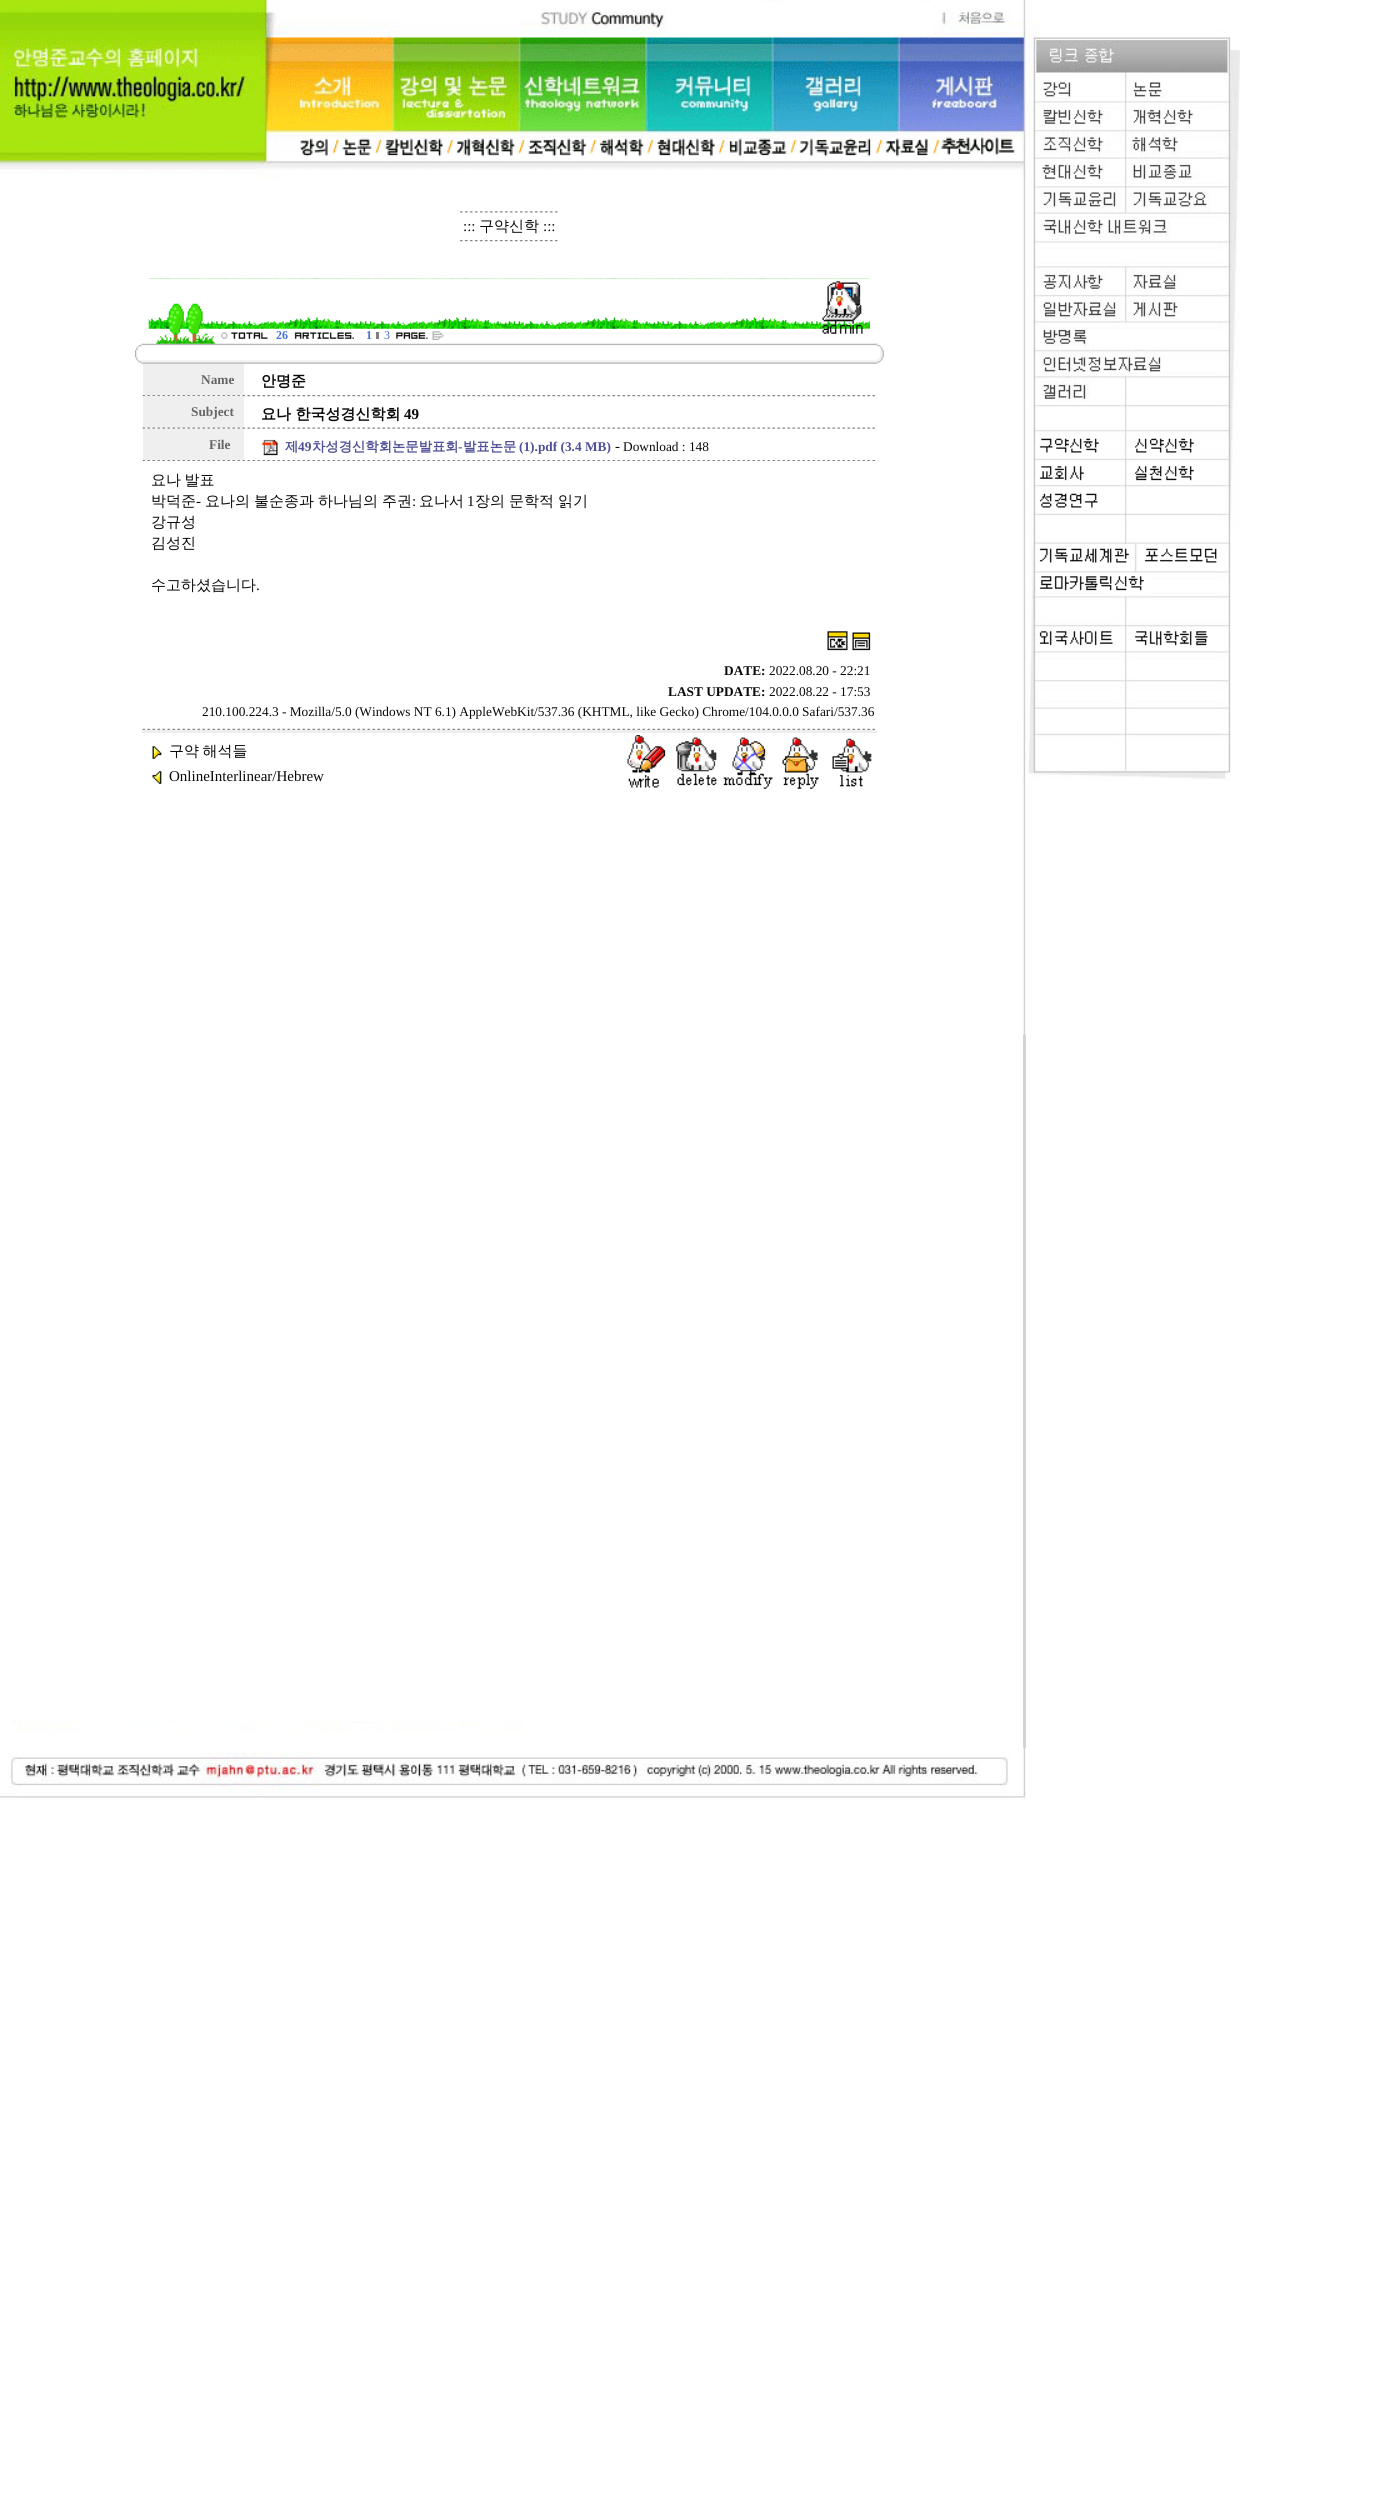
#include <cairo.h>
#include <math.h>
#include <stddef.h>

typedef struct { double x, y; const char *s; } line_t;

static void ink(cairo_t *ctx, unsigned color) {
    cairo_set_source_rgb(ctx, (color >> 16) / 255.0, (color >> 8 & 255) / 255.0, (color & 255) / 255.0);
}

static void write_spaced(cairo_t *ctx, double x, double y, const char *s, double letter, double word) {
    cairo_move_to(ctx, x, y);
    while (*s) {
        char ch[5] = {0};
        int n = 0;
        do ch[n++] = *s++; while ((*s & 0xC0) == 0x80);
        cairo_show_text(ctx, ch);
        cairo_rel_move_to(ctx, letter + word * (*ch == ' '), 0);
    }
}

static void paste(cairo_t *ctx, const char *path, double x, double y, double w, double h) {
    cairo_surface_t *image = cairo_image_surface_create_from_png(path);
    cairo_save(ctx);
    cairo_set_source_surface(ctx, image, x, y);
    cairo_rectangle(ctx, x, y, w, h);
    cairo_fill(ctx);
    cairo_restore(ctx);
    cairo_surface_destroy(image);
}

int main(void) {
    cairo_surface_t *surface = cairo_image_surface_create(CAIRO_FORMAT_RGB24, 1388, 2493);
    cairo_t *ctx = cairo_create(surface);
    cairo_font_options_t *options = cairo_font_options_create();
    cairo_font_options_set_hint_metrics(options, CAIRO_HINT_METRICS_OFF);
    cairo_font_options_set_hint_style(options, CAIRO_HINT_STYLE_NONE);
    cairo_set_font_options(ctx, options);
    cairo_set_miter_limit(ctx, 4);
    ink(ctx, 0xFFFFFF);
    cairo_paint(ctx);
    paste(ctx, "media/1.png", 0, 0, 1020, 180);
    ink(ctx, 0xD3D3D3);
    cairo_rectangle(ctx, 1023, 1035, 3, 713);
    cairo_fill(ctx);
    paste(ctx, "media/2.png", 1020, 0, 220, 1035);
    paste(ctx, "media/3.png", 460, 211, 98, 2);
    cairo_select_font_face(ctx, "Liberation Serif", CAIRO_FONT_SLANT_NORMAL, CAIRO_FONT_WEIGHT_NORMAL);
    cairo_set_font_size(ctx, 15);
    ink(ctx, 0x090909);
    cairo_move_to(ctx, 463, 231);
    cairo_show_text(ctx, ":::");
    cairo_select_font_face(ctx, "WenQuanYi Zen Hei Medium", CAIRO_FONT_SLANT_NORMAL, CAIRO_FONT_WEIGHT_NORMAL);
    cairo_move_to(ctx, 479, 231);
    cairo_show_text(ctx, "구약신학");
    cairo_select_font_face(ctx, "Liberation Serif", CAIRO_FONT_SLANT_NORMAL, CAIRO_FONT_WEIGHT_NORMAL);
    cairo_move_to(ctx, 543, 231);
    cairo_show_text(ctx, ":::");
    paste(ctx, "media/4.png", 460, 240, 98, 2);
    paste(ctx, "media/5.png", 148, 278, 722, 51);
    paste(ctx, "media/13.png", 142, 343, 735, 21);
    paste(ctx, "media/6.png", 156, 303, 60, 41);
    paste(ctx, "media/7.png", 221, 332, 47, 7);
    cairo_select_font_face(ctx, "Liberation Serif", CAIRO_FONT_SLANT_NORMAL, CAIRO_FONT_WEIGHT_BOLD);
    cairo_set_font_size(ctx, 12);
    ink(ctx, 0x4272D7);
    cairo_move_to(ctx, 276, 339);
    cairo_show_text(ctx, "26");
    paste(ctx, "media/8.png", 294, 332, 60, 7);
    cairo_move_to(ctx, 366, 339);
    cairo_show_text(ctx, "1");
    ink(ctx, 0x7F7F7F);
    cairo_rectangle(ctx, 376, 332, 3, 7);
    cairo_fill(ctx);
    cairo_select_font_face(ctx, "Liberation Serif", CAIRO_FONT_SLANT_NORMAL, CAIRO_FONT_WEIGHT_NORMAL);
    ink(ctx, 0x4272D7);
    cairo_move_to(ctx, 384, 339);
    cairo_show_text(ctx, "3");
    paste(ctx, "media/9.png", 396, 332, 32, 7);
    paste(ctx, "media/10.png", 432, 331, 12, 9);
    paste(ctx, "media/11.png", 822, 281, 41, 53);
    paste(ctx, "media/12.png", 135, 343, 8, 21);
    paste(ctx, "media/14.png", 875, 343, 2, 21);
    paste(ctx, "media/15.png", 876, 343, 8, 21);
    ink(ctx, 0xEFEFEF);
    cairo_rectangle(ctx, 143, 364, 101, 31);
    cairo_fill(ctx);
    cairo_select_font_face(ctx, "Liberation Serif", CAIRO_FONT_SLANT_NORMAL, CAIRO_FONT_WEIGHT_BOLD);
    cairo_set_font_size(ctx, 13.33);
    ink(ctx, 0x666666);
    cairo_move_to(ctx, 201, 384);
    cairo_show_text(ctx, "Name");
    cairo_select_font_face(ctx, "WenQuanYi Zen Hei", CAIRO_FONT_SLANT_NORMAL, CAIRO_FONT_WEIGHT_BOLD);
    cairo_set_font_size(ctx, 15);
    ink(ctx, 0x090909);
    cairo_move_to(ctx, 261, 386);
    cairo_show_text(ctx, "안명준");
    paste(ctx, "media/16.png", 142, 395, 734, 2);
    ink(ctx, 0xEFEFEF);
    cairo_rectangle(ctx, 143, 396, 101, 32);
    cairo_fill(ctx);
    cairo_select_font_face(ctx, "Liberation Serif", CAIRO_FONT_SLANT_NORMAL, CAIRO_FONT_WEIGHT_BOLD);
    cairo_set_font_size(ctx, 13.33);
    ink(ctx, 0x666666);
    cairo_move_to(ctx, 191, 416);
    cairo_show_text(ctx, "Subject");
    cairo_select_font_face(ctx, "WenQuanYi Zen Hei", CAIRO_FONT_SLANT_NORMAL, CAIRO_FONT_WEIGHT_BOLD);
    cairo_set_font_size(ctx, 15);
    ink(ctx, 0x090909);
    cairo_move_to(ctx, 261, 419);
    cairo_show_text(ctx, "요나 한국성경신학회");
    cairo_select_font_face(ctx, "Liberation Serif", CAIRO_FONT_SLANT_NORMAL, CAIRO_FONT_WEIGHT_BOLD);
    cairo_move_to(ctx, 404, 419);
    cairo_show_text(ctx, "49");
    paste(ctx, "media/17.png", 142, 427, 734, 2);
    ink(ctx, 0xEFEFEF);
    cairo_rectangle(ctx, 143, 429, 101, 31);
    cairo_fill(ctx);
    cairo_set_font_size(ctx, 13.33);
    ink(ctx, 0x666666);
    cairo_move_to(ctx, 209, 449);
    cairo_show_text(ctx, "File");
    paste(ctx, "media/18.png", 262, 439, 16, 17);
    cairo_select_font_face(ctx, "WenQuanYi Zen Hei", CAIRO_FONT_SLANT_NORMAL, CAIRO_FONT_WEIGHT_BOLD);
    ink(ctx, 0x4F4F96);
    cairo_move_to(ctx, 285, 451);
    cairo_show_text(ctx, "제");
    cairo_select_font_face(ctx, "Liberation Serif", CAIRO_FONT_SLANT_NORMAL, CAIRO_FONT_WEIGHT_BOLD);
    cairo_move_to(ctx, 298, 451);
    cairo_show_text(ctx, "49");
    cairo_select_font_face(ctx, "WenQuanYi Zen Hei", CAIRO_FONT_SLANT_NORMAL, CAIRO_FONT_WEIGHT_BOLD);
    cairo_move_to(ctx, 312, 451);
    cairo_show_text(ctx, "차성경신학회논문발표회");
    cairo_select_font_face(ctx, "Liberation Serif", CAIRO_FONT_SLANT_NORMAL, CAIRO_FONT_WEIGHT_BOLD);
    cairo_move_to(ctx, 458, 451);
    cairo_show_text(ctx, "-");
    cairo_select_font_face(ctx, "WenQuanYi Zen Hei", CAIRO_FONT_SLANT_NORMAL, CAIRO_FONT_WEIGHT_BOLD);
    cairo_move_to(ctx, 463, 451);
    cairo_show_text(ctx, "발표논문");
    cairo_select_font_face(ctx, "Liberation Serif", CAIRO_FONT_SLANT_NORMAL, CAIRO_FONT_WEIGHT_BOLD);
    cairo_move_to(ctx, 519, 451);
    cairo_show_text(ctx, "(1).pdf (3.4 MB)");
    cairo_select_font_face(ctx, "Liberation Serif", CAIRO_FONT_SLANT_NORMAL, CAIRO_FONT_WEIGHT_NORMAL);
    cairo_set_font_size(ctx, 15);
    ink(ctx, 0x090909);
    cairo_move_to(ctx, 615, 451);
    cairo_show_text(ctx, "-");
    cairo_set_font_size(ctx, 13.33);
    cairo_move_to(ctx, 623, 451);
    cairo_show_text(ctx, "Download : 148");
    paste(ctx, "media/16.png", 142, 460, 734, 2);
    ink(ctx, 0xFFFFFF);
    cairo_rectangle(ctx, 143, 461, 733, 1);
    cairo_fill(ctx);
    cairo_select_font_face(ctx, "WenQuanYi Zen Hei Medium", CAIRO_FONT_SLANT_NORMAL, CAIRO_FONT_WEIGHT_NORMAL);
    cairo_set_font_size(ctx, 15);
    ink(ctx, 0x090909);
    write_spaced(ctx, 151, 485, "요나 발표", 0, -1);
    cairo_move_to(ctx, 151, 506);
    cairo_show_text(ctx, "박덕준");
    cairo_select_font_face(ctx, "Liberation Serif", CAIRO_FONT_SLANT_NORMAL, CAIRO_FONT_WEIGHT_NORMAL);
    cairo_move_to(ctx, 196, 506);
    cairo_show_text(ctx, "-");
    cairo_select_font_face(ctx, "WenQuanYi Zen Hei Medium", CAIRO_FONT_SLANT_NORMAL, CAIRO_FONT_WEIGHT_NORMAL);
    write_spaced(ctx, 205, 506, "요나의 불순종과 하나님의 주권", 0, -0.5);
    cairo_select_font_face(ctx, "Liberation Serif", CAIRO_FONT_SLANT_NORMAL, CAIRO_FONT_WEIGHT_NORMAL);
    cairo_move_to(ctx, 412, 506);
    cairo_show_text(ctx, ":");
    cairo_select_font_face(ctx, "WenQuanYi Zen Hei Medium", CAIRO_FONT_SLANT_NORMAL, CAIRO_FONT_WEIGHT_NORMAL);
    cairo_move_to(ctx, 419, 506);
    cairo_show_text(ctx, "요나서");
    cairo_select_font_face(ctx, "Liberation Serif", CAIRO_FONT_SLANT_NORMAL, CAIRO_FONT_WEIGHT_NORMAL);
    cairo_move_to(ctx, 467, 506);
    cairo_show_text(ctx, "1");
    cairo_select_font_face(ctx, "WenQuanYi Zen Hei Medium", CAIRO_FONT_SLANT_NORMAL, CAIRO_FONT_WEIGHT_NORMAL);
    write_spaced(ctx, 475, 506, "장의 문학적 읽기", 0, -0.5);
    {
        static const line_t items[] = {
            {151, 527, "강규성"},
            {151, 548, "김성진"},
            {151, 590, "수고하셨습니다"},
        };
        for (size_t i = 0; i < sizeof items / sizeof *items; i++) {
            cairo_move_to(ctx, items[i].x, items[i].y);
            cairo_show_text(ctx, items[i].s);
        }
    }
    cairo_select_font_face(ctx, "Liberation Serif", CAIRO_FONT_SLANT_NORMAL, CAIRO_FONT_WEIGHT_NORMAL);
    cairo_move_to(ctx, 256, 590);
    cairo_show_text(ctx, ".");
    paste(ctx, "media/19.png", 827, 631, 21, 20);
    paste(ctx, "media/20.png", 852, 632, 19, 19);
    cairo_select_font_face(ctx, "Liberation Serif", CAIRO_FONT_SLANT_NORMAL, CAIRO_FONT_WEIGHT_BOLD);
    cairo_set_font_size(ctx, 13.33);
    cairo_move_to(ctx, 724, 675);
    cairo_show_text(ctx, "DATE:");
    cairo_select_font_face(ctx, "Liberation Serif", CAIRO_FONT_SLANT_NORMAL, CAIRO_FONT_WEIGHT_NORMAL);
    cairo_move_to(ctx, 769, 675);
    cairo_show_text(ctx, "2022.08.20 - 22:21");
    cairo_select_font_face(ctx, "Liberation Serif", CAIRO_FONT_SLANT_NORMAL, CAIRO_FONT_WEIGHT_BOLD);
    cairo_move_to(ctx, 668, 696);
    cairo_show_text(ctx, "LAST UPDATE:");
    cairo_select_font_face(ctx, "Liberation Serif", CAIRO_FONT_SLANT_NORMAL, CAIRO_FONT_WEIGHT_NORMAL);
    cairo_move_to(ctx, 769, 696);
    cairo_show_text(ctx, "2022.08.22 - 17:53");
    cairo_move_to(ctx, 202, 716);
    cairo_show_text(ctx, "210.100.224.3 - Mozilla/5.0 (Windows NT 6.1) AppleWebKit/537.36 (KHTML, like Gecko) Chrome/104.0.0.0 Safari/537.36");
    paste(ctx, "media/21.png", 142, 728, 734, 2);
    ink(ctx, 0xEEEEEE);
    cairo_rectangle(ctx, 142, 730, 735, 3);
    cairo_fill(ctx);
    paste(ctx, "media/22.png", 152, 746, 10, 13);
    cairo_select_font_face(ctx, "WenQuanYi Zen Hei Medium", CAIRO_FONT_SLANT_NORMAL, CAIRO_FONT_WEIGHT_NORMAL);
    cairo_set_font_size(ctx, 15);
    ink(ctx, 0x090909);
    write_spaced(ctx, 169, 756, "구약 해석들", 0, -1);
    paste(ctx, "media/23.png", 152, 771, 10, 13);
    cairo_select_font_face(ctx, "Liberation Serif", CAIRO_FONT_SLANT_NORMAL, CAIRO_FONT_WEIGHT_NORMAL);
    cairo_move_to(ctx, 169, 781);
    cairo_show_text(ctx, "OnlineInterlinear/Hebrew");
    paste(ctx, "media/24.png", 627, 735, 39, 53);
    paste(ctx, "media/25.png", 676, 737, 41, 49);
    paste(ctx, "media/26.png", 723, 737, 50, 52);
    paste(ctx, "media/27.png", 782, 737, 37, 52);
    paste(ctx, "media/28.png", 832, 738, 40, 49);
    paste(ctx, "media/29.png", 12, 1721, 511, 12);
    paste(ctx, "media/30.png", 0, 1747, 1026, 53);
    cairo_surface_write_to_png(surface, "image.png");
    cairo_font_options_destroy(options);
    cairo_destroy(ctx);
    cairo_surface_destroy(surface);
    return 0;
}
